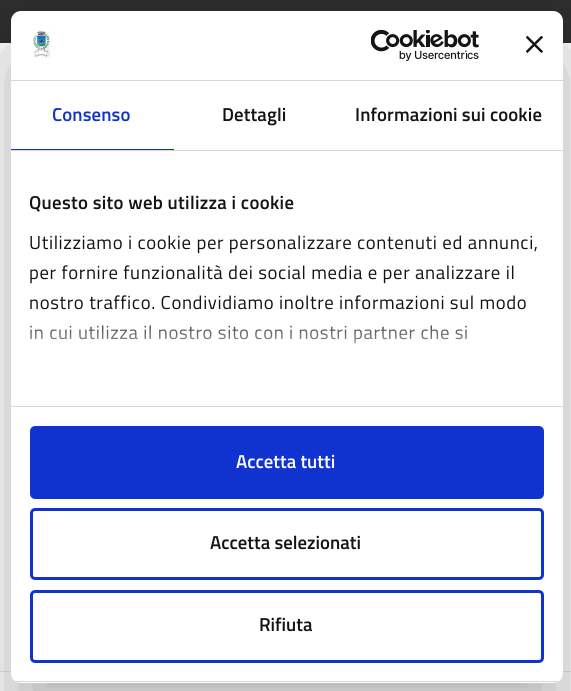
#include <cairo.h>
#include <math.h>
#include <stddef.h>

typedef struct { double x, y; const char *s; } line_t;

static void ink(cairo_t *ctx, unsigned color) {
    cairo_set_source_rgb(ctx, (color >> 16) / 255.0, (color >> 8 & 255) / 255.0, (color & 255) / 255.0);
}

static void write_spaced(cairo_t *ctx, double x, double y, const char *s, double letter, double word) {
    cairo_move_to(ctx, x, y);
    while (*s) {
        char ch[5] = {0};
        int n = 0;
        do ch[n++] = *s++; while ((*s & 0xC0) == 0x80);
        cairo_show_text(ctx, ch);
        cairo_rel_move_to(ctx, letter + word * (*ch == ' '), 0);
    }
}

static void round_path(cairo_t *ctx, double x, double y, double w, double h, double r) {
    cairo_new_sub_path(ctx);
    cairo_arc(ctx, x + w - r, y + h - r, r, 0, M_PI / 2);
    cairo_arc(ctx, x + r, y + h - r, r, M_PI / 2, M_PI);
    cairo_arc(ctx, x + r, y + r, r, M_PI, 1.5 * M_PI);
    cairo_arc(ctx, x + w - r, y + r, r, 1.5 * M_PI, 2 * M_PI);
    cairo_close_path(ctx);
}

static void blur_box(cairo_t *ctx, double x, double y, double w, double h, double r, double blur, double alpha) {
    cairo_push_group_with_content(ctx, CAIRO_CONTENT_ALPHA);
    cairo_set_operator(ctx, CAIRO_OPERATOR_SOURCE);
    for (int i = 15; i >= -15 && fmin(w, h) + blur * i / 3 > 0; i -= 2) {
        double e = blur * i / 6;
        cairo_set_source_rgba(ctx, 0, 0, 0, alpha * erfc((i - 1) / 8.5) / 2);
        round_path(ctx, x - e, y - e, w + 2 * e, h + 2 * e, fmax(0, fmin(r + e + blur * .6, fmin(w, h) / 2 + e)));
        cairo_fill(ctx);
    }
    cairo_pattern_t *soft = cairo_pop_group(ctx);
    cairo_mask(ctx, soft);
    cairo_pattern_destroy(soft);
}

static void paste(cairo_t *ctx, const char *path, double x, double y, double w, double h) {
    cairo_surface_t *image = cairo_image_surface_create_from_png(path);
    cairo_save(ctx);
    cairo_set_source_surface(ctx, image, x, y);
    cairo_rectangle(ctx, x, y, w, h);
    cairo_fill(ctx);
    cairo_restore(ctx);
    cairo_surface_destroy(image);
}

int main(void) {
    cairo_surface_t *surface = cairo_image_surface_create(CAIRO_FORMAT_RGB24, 571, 691);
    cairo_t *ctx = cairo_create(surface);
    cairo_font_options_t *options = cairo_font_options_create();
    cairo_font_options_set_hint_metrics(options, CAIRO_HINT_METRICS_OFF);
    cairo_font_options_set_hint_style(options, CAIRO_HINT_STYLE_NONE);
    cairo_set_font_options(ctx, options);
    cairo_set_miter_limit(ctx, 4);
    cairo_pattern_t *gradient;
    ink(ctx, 0xFFFFFF);
    cairo_paint(ctx);
    ink(ctx, 0x2E2E2E);
    cairo_rectangle(ctx, 0, 0, 571, 43);
    cairo_fill(ctx);
    ink(ctx, 0xE9E6F2);
    cairo_rectangle(ctx, 0, 671, 571, 1);
    cairo_fill(ctx);
    ink(ctx, 0x000000);
    blur_box(ctx, 11, 51, 552, 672, 10, 42.5, 0.3);
    ink(ctx, 0xFFFFFF);
    round_path(ctx, 11, 11, 552, 672, 10);
    cairo_fill(ctx);
    ink(ctx, 0xD6D6D6);
    cairo_rectangle(ctx, 11, 80, 552, 1);
    cairo_fill(ctx);
    paste(ctx, "media/1.png", 33, 30, 19, 28);
    paste(ctx, "media/2.png", 371, 30, 108, 31);
    paste(ctx, "media/3.png", 526, 36, 17, 17);
    cairo_rectangle(ctx, 11, 150, 552, 1);
    cairo_fill(ctx);
    ink(ctx, 0x1032CF);
    cairo_rectangle(ctx, 11, 149, 163, 1);
    cairo_fill(ctx);
    cairo_select_font_face(ctx, "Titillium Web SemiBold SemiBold", CAIRO_FONT_SLANT_NORMAL, CAIRO_FONT_WEIGHT_NORMAL);
    cairo_set_font_size(ctx, 18.75);
    write_spaced(ctx, 52, 121, "Consenso", 0.1, 0);
    ink(ctx, 0x141414);
    write_spaced(ctx, 222, 121, "Dettagli", 0.1, 0);
    write_spaced(ctx, 355, 121, "Informazioni sui cookie", 0.1, 0);
    ink(ctx, 0xD6D6D6);
    cairo_rectangle(ctx, 11, 406, 552, 1);
    cairo_fill(ctx);
    ink(ctx, 0x141414);
    write_spaced(ctx, 29, 209, "Questo sito web utilizza i cookie", 0.3, 0);
    cairo_select_font_face(ctx, "Titillium Web", CAIRO_FONT_SLANT_NORMAL, CAIRO_FONT_WEIGHT_NORMAL);
    {
        static const line_t items[] = {
            {29, 249, "Utilizziamo i cookie per personalizzare contenuti ed annunci,"},
            {29, 279, "per fornire funzionalità dei social media e per analizzare il"},
            {29, 309, "nostro traffico. Condividiamo inoltre informazioni sul modo"},
            {29, 339, "in cui utilizza il nostro sito con i nostri partner che si"},
        };
        for (size_t i = 0; i < sizeof items / sizeof *items; i++) {
            write_spaced(ctx, items[i].x, items[i].y, items[i].s, 0.62, 0);
        }
    }
    gradient = cairo_pattern_create_linear(278, 406, 278, 312);
    cairo_pattern_add_color_stop_rgba(gradient, 0, 1, 1, 1, 1);
    cairo_pattern_add_color_stop_rgba(gradient, 0.5, 1, 1, 1, 0.8);
    cairo_pattern_add_color_stop_rgba(gradient, 1, 1, 1, 1, 0);
    cairo_set_source(ctx, gradient);
    cairo_pattern_destroy(gradient);
    cairo_rectangle(ctx, 30, 325, 437, 19);
    cairo_fill(ctx);
    cairo_save(ctx);
    round_path(ctx, 11, 11, 552, 672, 10);
    cairo_clip(ctx);
    ink(ctx, 0xD6D6D6);
    cairo_rectangle(ctx, 11, 681, 552, 1);
    cairo_fill(ctx);
    cairo_restore(ctx);
    ink(ctx, 0x1032CF);
    round_path(ctx, 31.5, 427.5, 511, 70, 3.5);
    cairo_fill_preserve(ctx);
    cairo_set_line_width(ctx, 3);
    cairo_stroke(ctx);
    cairo_select_font_face(ctx, "Titillium Web SemiBold SemiBold", CAIRO_FONT_SLANT_NORMAL, CAIRO_FONT_WEIGHT_NORMAL);
    ink(ctx, 0xFFFFFF);
    cairo_move_to(ctx, 236, 468);
    cairo_show_text(ctx, "Accetta tutti");
    round_path(ctx, 31.5, 509.5, 511, 69, 3.5);
    ink(ctx, 0x1032CF);
    cairo_stroke(ctx);
    ink(ctx, 0x141414);
    cairo_move_to(ctx, 210, 549);
    cairo_show_text(ctx, "Accetta selezionati");
    round_path(ctx, 31.5, 591.5, 511, 70, 3.5);
    ink(ctx, 0x1032CF);
    cairo_stroke(ctx);
    ink(ctx, 0x141414);
    cairo_move_to(ctx, 259, 631);
    cairo_show_text(ctx, "Rifiuta");
    cairo_surface_write_to_png(surface, "image.png");
    cairo_font_options_destroy(options);
    cairo_destroy(ctx);
    cairo_surface_destroy(surface);
    return 0;
}
